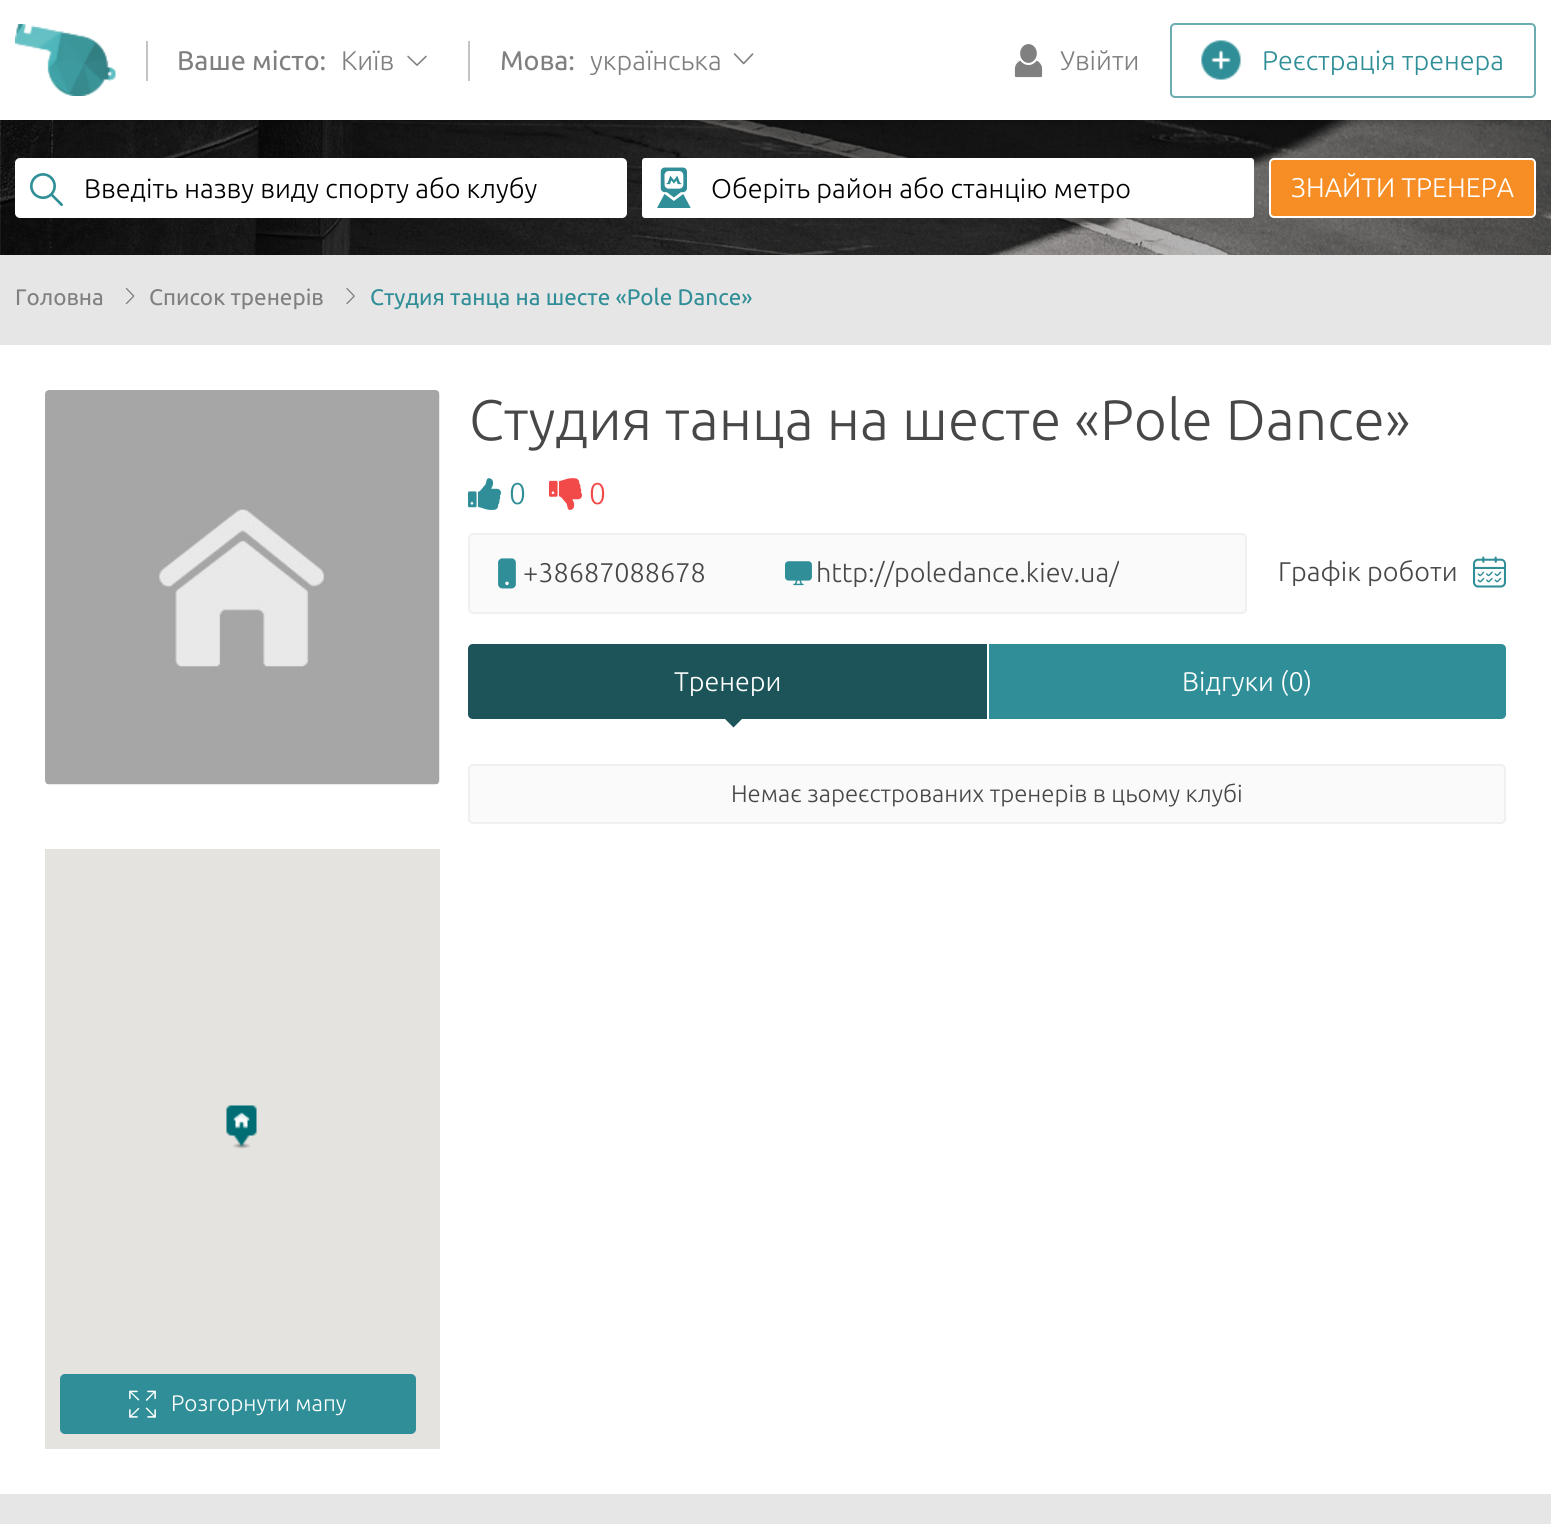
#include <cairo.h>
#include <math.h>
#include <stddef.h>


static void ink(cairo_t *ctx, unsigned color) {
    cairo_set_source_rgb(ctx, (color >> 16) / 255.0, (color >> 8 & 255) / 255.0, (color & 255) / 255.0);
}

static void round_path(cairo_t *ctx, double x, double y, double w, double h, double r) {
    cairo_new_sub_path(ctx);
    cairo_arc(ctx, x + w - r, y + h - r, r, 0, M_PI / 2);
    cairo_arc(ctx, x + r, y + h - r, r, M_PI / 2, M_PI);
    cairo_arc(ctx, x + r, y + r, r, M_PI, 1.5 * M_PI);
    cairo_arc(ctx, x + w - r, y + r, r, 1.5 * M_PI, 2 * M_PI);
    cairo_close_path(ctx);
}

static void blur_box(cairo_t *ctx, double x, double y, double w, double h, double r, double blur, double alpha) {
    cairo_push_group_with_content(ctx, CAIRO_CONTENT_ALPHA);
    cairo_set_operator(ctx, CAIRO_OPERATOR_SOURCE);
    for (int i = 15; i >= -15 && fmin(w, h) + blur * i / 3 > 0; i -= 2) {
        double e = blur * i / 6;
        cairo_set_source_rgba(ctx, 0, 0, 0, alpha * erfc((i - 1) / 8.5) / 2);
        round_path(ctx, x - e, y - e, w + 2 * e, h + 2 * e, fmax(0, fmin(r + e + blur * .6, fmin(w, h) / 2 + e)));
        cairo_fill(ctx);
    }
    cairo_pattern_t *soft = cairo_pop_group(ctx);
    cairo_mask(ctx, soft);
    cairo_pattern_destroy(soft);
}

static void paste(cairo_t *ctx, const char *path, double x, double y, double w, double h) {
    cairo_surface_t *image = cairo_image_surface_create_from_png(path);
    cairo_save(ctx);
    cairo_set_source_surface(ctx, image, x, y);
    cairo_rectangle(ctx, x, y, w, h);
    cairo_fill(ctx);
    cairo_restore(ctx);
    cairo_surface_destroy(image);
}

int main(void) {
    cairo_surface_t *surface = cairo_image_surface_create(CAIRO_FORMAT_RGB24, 1551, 1524);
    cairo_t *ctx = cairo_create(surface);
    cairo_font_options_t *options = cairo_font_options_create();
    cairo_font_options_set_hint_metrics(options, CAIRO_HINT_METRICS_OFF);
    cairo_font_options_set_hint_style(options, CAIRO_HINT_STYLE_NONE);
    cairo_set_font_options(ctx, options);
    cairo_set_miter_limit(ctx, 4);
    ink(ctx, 0xE6E6E6);
    cairo_paint(ctx);
    paste(ctx, "media/5.png", 0, 120, 1551, 135);
    ink(ctx, 0x000000);
    blur_box(ctx, 0, 2, 1551, 120, 0, 3, 0.2);
    ink(ctx, 0xFFFFFF);
    cairo_rectangle(ctx, 0, 0, 1551, 120);
    cairo_fill(ctx);
    paste(ctx, "media/1.png", 15, 24, 101, 72);
    ink(ctx, 0xC4C4C4);
    cairo_rectangle(ctx, 146, 41, 2, 40);
    cairo_fill(ctx);
    cairo_select_font_face(ctx, "Ubuntu", CAIRO_FONT_SLANT_NORMAL, CAIRO_FONT_WEIGHT_NORMAL);
    cairo_set_font_size(ctx, 27);
    ink(ctx, 0x808080);
    cairo_move_to(ctx, 177, 70);
    cairo_show_text(ctx, "Ваше місто:");
    cairo_select_font_face(ctx, "Ubuntu Light", CAIRO_FONT_SLANT_NORMAL, CAIRO_FONT_WEIGHT_NORMAL);
    cairo_move_to(ctx, 341, 70);
    cairo_show_text(ctx, "Київ");
    paste(ctx, "media/2.png", 407, 55, 20, 11);
    ink(ctx, 0xC4C4C4);
    cairo_rectangle(ctx, 468, 41, 2, 40);
    cairo_fill(ctx);
    cairo_select_font_face(ctx, "Ubuntu", CAIRO_FONT_SLANT_NORMAL, CAIRO_FONT_WEIGHT_NORMAL);
    ink(ctx, 0x808080);
    cairo_move_to(ctx, 500, 70);
    cairo_show_text(ctx, "Мова:");
    cairo_select_font_face(ctx, "Ubuntu Light", CAIRO_FONT_SLANT_NORMAL, CAIRO_FONT_WEIGHT_NORMAL);
    cairo_move_to(ctx, 590, 70);
    cairo_show_text(ctx, "українська");
    paste(ctx, "media/3.png", 733, 53, 21, 12);
    cairo_select_font_face(ctx, "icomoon", CAIRO_FONT_SLANT_NORMAL, CAIRO_FONT_WEIGHT_NORMAL);
    cairo_set_font_size(ctx, 33);
    cairo_move_to(ctx, 1012, 75);
    cairo_show_text(ctx, "2");
    cairo_select_font_face(ctx, "Ubuntu Light", CAIRO_FONT_SLANT_NORMAL, CAIRO_FONT_WEIGHT_NORMAL);
    cairo_set_font_size(ctx, 27);
    cairo_move_to(ctx, 1060, 70);
    cairo_show_text(ctx, "Увійти");
    round_path(ctx, 1171, 24, 364, 73, 4);
    ink(ctx, 0x6BACB0);
    cairo_stroke(ctx);
    paste(ctx, "media/4.png", 1201, 40, 40, 40);
    ink(ctx, 0x2F8E97);
    cairo_move_to(ctx, 1262, 70);
    cairo_show_text(ctx, "Реєстрація тренера");
    ink(ctx, 0xFFFFFF);
    round_path(ctx, 15, 158, 612, 60, 5);
    cairo_fill(ctx);
    paste(ctx, "media/6.png", 30, 173, 33, 33);
    ink(ctx, 0x000000);
    cairo_move_to(ctx, 84, 198);
    cairo_show_text(ctx, "Введіть назву виду спорту або клубу");
    ink(ctx, 0xFFFFFF);
    round_path(ctx, 642, 158, 612, 60, 3);
    cairo_fill(ctx);
    paste(ctx, "media/7.png", 657, 167, 34, 41);
    ink(ctx, 0x000000);
    cairo_move_to(ctx, 711, 198);
    cairo_show_text(ctx, "Оберіть район або станцію метро");
    ink(ctx, 0xF78E25);
    round_path(ctx, 1270, 159, 265, 58, 4);
    cairo_fill_preserve(ctx);
    ink(ctx, 0xFFFFFF);
    cairo_stroke(ctx);
    cairo_move_to(ctx, 1291, 197);
    cairo_show_text(ctx, "ЗНАЙТИ ТРЕНЕРА");
    cairo_select_font_face(ctx, "Ubuntu", CAIRO_FONT_SLANT_NORMAL, CAIRO_FONT_WEIGHT_NORMAL);
    cairo_set_font_size(ctx, 22.5);
    ink(ctx, 0x808080);
    cairo_move_to(ctx, 15, 305);
    cairo_show_text(ctx, "Головна");
    paste(ctx, "media/8.png", 125, 288, 10, 17);
    cairo_move_to(ctx, 149, 305);
    cairo_show_text(ctx, "Список тренерів");
    paste(ctx, "media/9.png", 346, 288, 9, 17);
    ink(ctx, 0x2F8E97);
    cairo_move_to(ctx, 370, 305);
    cairo_show_text(ctx, "Студия танца на шесте «Pole Dance»");
    ink(ctx, 0xFFFFFF);
    cairo_rectangle(ctx, 0, 345, 1551, 1149);
    cairo_fill(ctx);
    cairo_select_font_face(ctx, "Ubuntu Light", CAIRO_FONT_SLANT_NORMAL, CAIRO_FONT_WEIGHT_NORMAL);
    cairo_set_font_size(ctx, 57);
    ink(ctx, 0x474747);
    cairo_move_to(ctx, 469, 440);
    cairo_show_text(ctx, "Студия танца на шесте «Pole Dance»");
    paste(ctx, "media/10.png", 468, 478, 33, 32);
    cairo_set_font_size(ctx, 30);
    ink(ctx, 0x2F8E97);
    cairo_move_to(ctx, 509, 504);
    cairo_show_text(ctx, "0");
    paste(ctx, "media/11.png", 549, 478, 33, 32);
    ink(ctx, 0xF24949);
    cairo_move_to(ctx, 589, 504);
    cairo_show_text(ctx, "0");
    ink(ctx, 0xFAFAFA);
    round_path(ctx, 469, 534, 777, 79, 4);
    cairo_fill_preserve(ctx);
    ink(ctx, 0xF0F0F0);
    cairo_stroke(ctx);
    paste(ctx, "media/12.png", 498, 558, 18, 31);
    cairo_set_font_size(ctx, 27);
    ink(ctx, 0x474747);
    cairo_move_to(ctx, 523, 582);
    cairo_show_text(ctx, "+38687088678");
    cairo_select_font_face(ctx, "icomoon", CAIRO_FONT_SLANT_NORMAL, CAIRO_FONT_WEIGHT_NORMAL);
    ink(ctx, 0x2F8E97);
    cairo_move_to(ctx, 785, 585);
    cairo_show_text(ctx, "4");
    cairo_save(ctx);
    cairo_rectangle(ctx, 816, 557, 303, 33);
    cairo_clip(ctx);
    cairo_select_font_face(ctx, "Ubuntu Light", CAIRO_FONT_SLANT_NORMAL, CAIRO_FONT_WEIGHT_NORMAL);
    ink(ctx, 0x474747);
    cairo_move_to(ctx, 816, 582);
    cairo_show_text(ctx, "http://poledance.kiev.ua/");
    cairo_restore(ctx);
    cairo_select_font_face(ctx, "Ubuntu Light", CAIRO_FONT_SLANT_NORMAL, CAIRO_FONT_WEIGHT_NORMAL);
    ink(ctx, 0x474747);
    cairo_move_to(ctx, 1278, 581);
    cairo_show_text(ctx, "Графік роботи");
    paste(ctx, "media/13.png", 1473, 556, 33, 32);
    ink(ctx, 0x1C5459);
    cairo_new_path(ctx);
    cairo_move_to(ctx, 473, 644);
    cairo_line_to(ctx, 987, 644);
    cairo_line_to(ctx, 987, 719);
    cairo_line_to(ctx, 473, 719);
    cairo_curve_to(ctx, 470, 719, 468, 717, 468, 714);
    cairo_line_to(ctx, 468, 649);
    cairo_curve_to(ctx, 468, 646, 470, 644, 473, 644);
    cairo_close_path(ctx);
    cairo_fill(ctx);
    ink(ctx, 0xFFFFFF);
    cairo_move_to(ctx, 674, 691);
    cairo_show_text(ctx, "Тренери");
    ink(ctx, 0x1C5459);
    cairo_new_path(ctx);
    cairo_move_to(ctx, 723, 717);
    cairo_line_to(ctx, 744, 717);
    cairo_line_to(ctx, 733.5, 727.5);
    cairo_close_path(ctx);
    cairo_fill(ctx);
    ink(ctx, 0x2F8E97);
    cairo_new_path(ctx);
    cairo_move_to(ctx, 989, 644);
    cairo_line_to(ctx, 1501, 644);
    cairo_curve_to(ctx, 1504, 644, 1506, 646, 1506, 649);
    cairo_line_to(ctx, 1506, 714);
    cairo_curve_to(ctx, 1506, 717, 1504, 719, 1501, 719);
    cairo_line_to(ctx, 989, 719);
    cairo_close_path(ctx);
    cairo_fill(ctx);
    ink(ctx, 0xFFFFFF);
    cairo_move_to(ctx, 1182, 691);
    cairo_show_text(ctx, "Відгуки (0)");
    ink(ctx, 0xFAFAFA);
    round_path(ctx, 469, 765, 1036, 58, 4);
    cairo_fill_preserve(ctx);
    ink(ctx, 0xF0F0F0);
    cairo_stroke(ctx);
    cairo_set_font_size(ctx, 24);
    ink(ctx, 0x474747);
    cairo_move_to(ctx, 731, 802);
    cairo_show_text(ctx, "Немає зареєстрованих тренерів в цьому клубі");
    paste(ctx, "media/14.png", 45, 390, 395, 395);
    ink(ctx, 0xE5E3DF);
    cairo_rectangle(ctx, 45, 849, 395, 600);
    cairo_fill(ctx);
    paste(ctx, "media/15.png", 226, 1105, 31, 44);
    ink(ctx, 0x2F8E97);
    round_path(ctx, 60, 1374, 356, 60, 5);
    cairo_fill(ctx);
    paste(ctx, "media/16.png", 129, 1390, 27, 28);
    cairo_set_font_size(ctx, 22.5);
    ink(ctx, 0xFFFFFF);
    cairo_move_to(ctx, 171, 1411);
    cairo_show_text(ctx, "Розгорнути мапу");
    cairo_surface_write_to_png(surface, "image.png");
    cairo_font_options_destroy(options);
    cairo_destroy(ctx);
    cairo_surface_destroy(surface);
    return 0;
}
